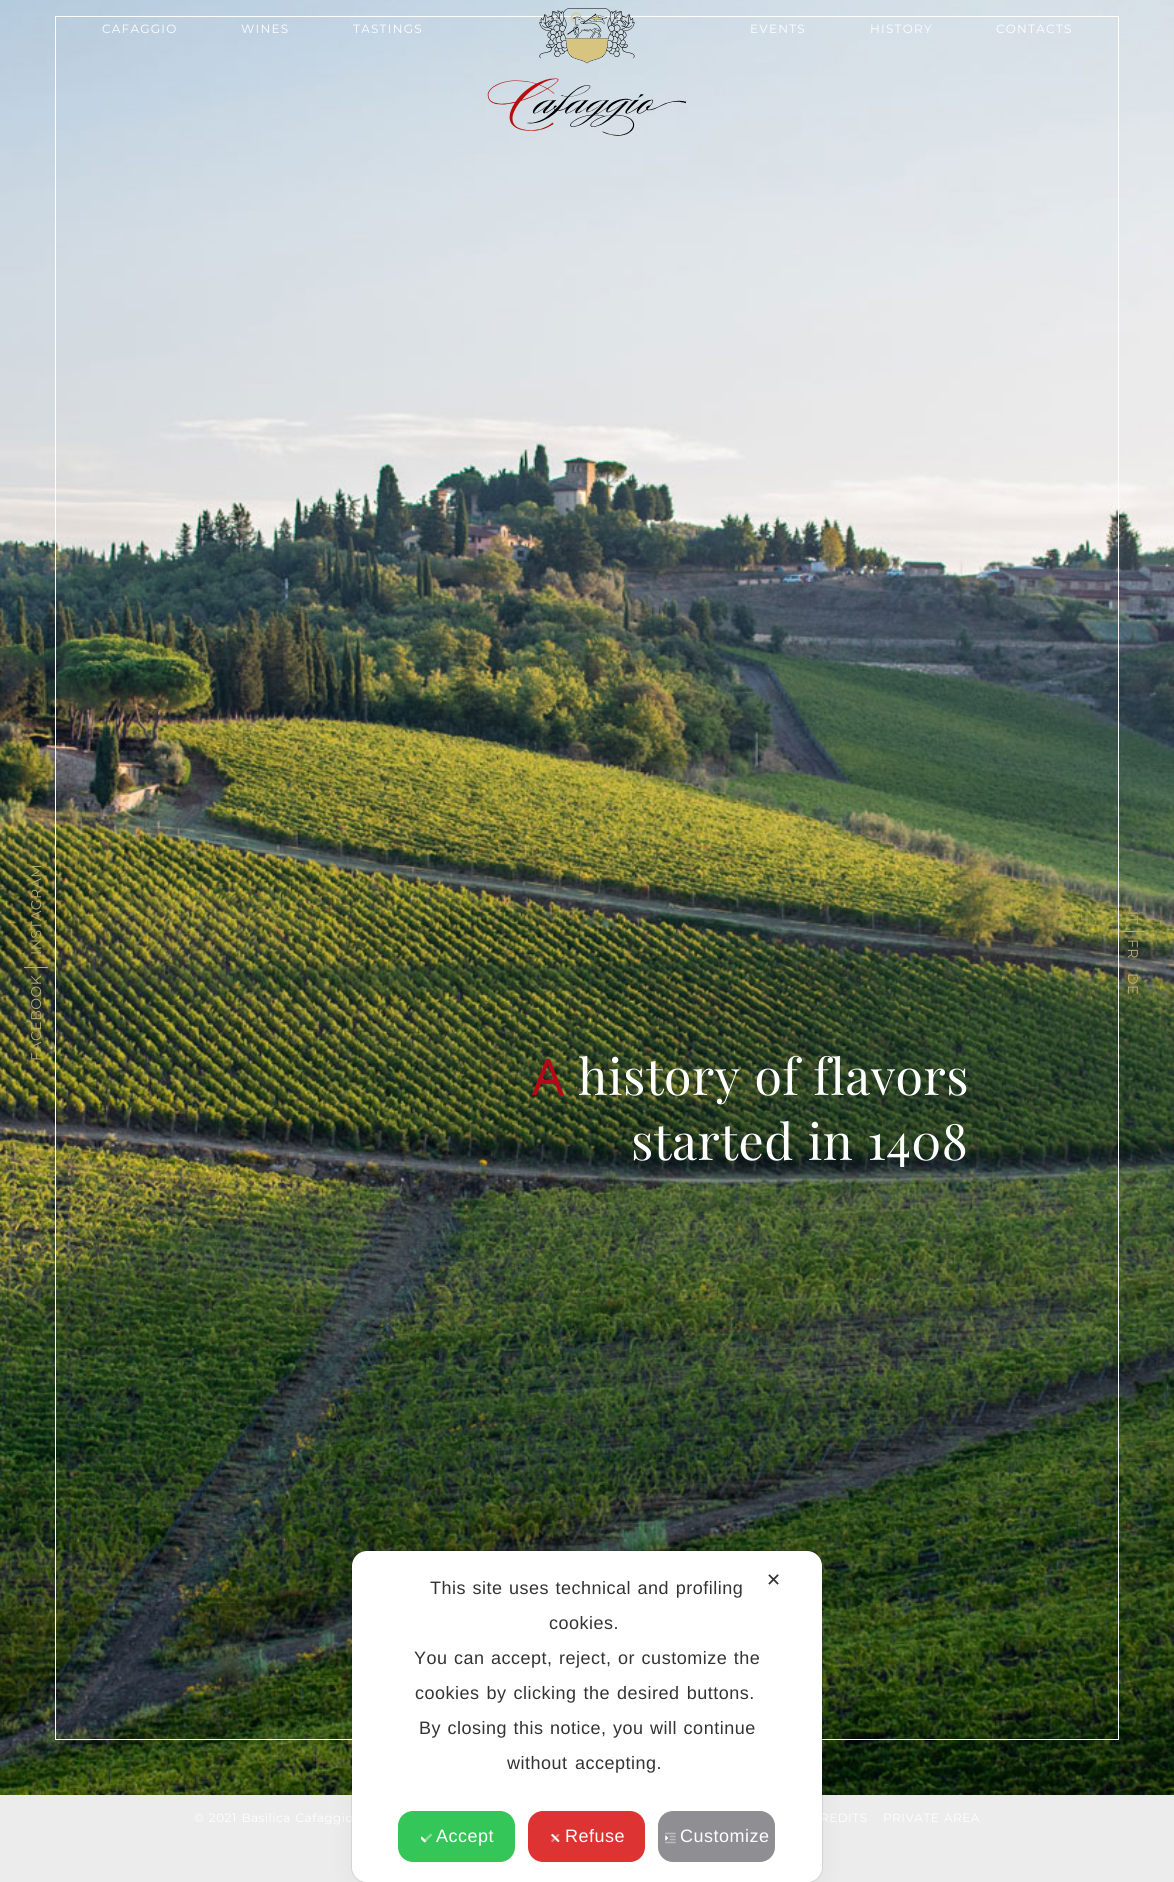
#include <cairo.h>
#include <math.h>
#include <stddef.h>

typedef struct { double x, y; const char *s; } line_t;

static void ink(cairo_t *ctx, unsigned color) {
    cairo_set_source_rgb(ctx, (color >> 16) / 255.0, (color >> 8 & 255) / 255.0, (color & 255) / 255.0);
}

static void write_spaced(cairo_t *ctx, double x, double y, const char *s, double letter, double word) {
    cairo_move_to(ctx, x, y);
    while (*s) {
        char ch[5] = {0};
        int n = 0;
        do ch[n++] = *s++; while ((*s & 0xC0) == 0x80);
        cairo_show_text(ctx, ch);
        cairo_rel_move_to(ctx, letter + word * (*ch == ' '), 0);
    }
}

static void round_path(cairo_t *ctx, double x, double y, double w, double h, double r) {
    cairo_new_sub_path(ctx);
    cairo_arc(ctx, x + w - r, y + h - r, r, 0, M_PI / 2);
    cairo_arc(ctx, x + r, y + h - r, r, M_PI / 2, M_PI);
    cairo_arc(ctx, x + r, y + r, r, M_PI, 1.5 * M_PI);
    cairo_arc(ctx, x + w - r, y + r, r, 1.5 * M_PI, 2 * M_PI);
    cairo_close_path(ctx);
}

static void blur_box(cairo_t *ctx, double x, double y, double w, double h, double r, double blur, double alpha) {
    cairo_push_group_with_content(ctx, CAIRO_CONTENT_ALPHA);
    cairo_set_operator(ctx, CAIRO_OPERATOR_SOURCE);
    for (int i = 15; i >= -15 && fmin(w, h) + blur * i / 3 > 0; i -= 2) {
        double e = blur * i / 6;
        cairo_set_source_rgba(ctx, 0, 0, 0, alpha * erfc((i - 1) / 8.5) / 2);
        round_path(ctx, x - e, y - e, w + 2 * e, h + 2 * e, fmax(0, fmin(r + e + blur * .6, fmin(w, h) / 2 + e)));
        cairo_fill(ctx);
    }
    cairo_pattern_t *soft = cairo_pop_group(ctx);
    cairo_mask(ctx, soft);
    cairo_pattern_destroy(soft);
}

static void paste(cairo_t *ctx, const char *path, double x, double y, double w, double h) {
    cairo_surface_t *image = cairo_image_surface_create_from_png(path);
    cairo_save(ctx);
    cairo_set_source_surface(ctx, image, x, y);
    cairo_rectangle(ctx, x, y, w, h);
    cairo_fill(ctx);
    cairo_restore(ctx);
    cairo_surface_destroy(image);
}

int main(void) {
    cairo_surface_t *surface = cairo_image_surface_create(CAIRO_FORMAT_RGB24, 1174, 1882);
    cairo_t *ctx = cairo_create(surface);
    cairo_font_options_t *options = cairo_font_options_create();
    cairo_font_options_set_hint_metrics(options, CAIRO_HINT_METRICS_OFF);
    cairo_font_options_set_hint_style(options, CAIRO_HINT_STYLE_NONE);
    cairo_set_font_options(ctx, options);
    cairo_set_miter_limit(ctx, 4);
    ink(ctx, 0xEDECEC);
    cairo_paint(ctx);
    paste(ctx, "media/2.png", 0, 0, 1174, 1795);
    cairo_rectangle(ctx, 55.5, 16.5, 1063, 1723);
    ink(ctx, 0xFFFFFF);
    cairo_set_line_width(ctx, 1);
    cairo_stroke(ctx);
    cairo_select_font_face(ctx, "Montserrat", CAIRO_FONT_SLANT_NORMAL, CAIRO_FONT_WEIGHT_NORMAL);
    cairo_set_font_size(ctx, 12);
    {
        static const line_t items[] = {
            {102, 33, "CAFAGGIO"},
            {241, 33, "WINES"},
            {353, 33, "TASTINGS"},
        };
        for (size_t i = 0; i < sizeof items / sizeof *items; i++) {
            write_spaced(ctx, items[i].x, items[i].y, items[i].s, 1.25, 0);
        }
    }
    paste(ctx, "media/1.png", 487, 8, 200, 128);
    {
        static const line_t items[] = {
            {750, 33, "EVENTS"},
            {870, 33, "HISTORY"},
            {996, 33, "CONTACTS"},
        };
        for (size_t i = 0; i < sizeof items / sizeof *items; i++) {
            write_spaced(ctx, items[i].x, items[i].y, items[i].s, 1.25, 0);
        }
    }
    cairo_set_font_size(ctx, 14);
    ink(ctx, 0xBDAE71);
    cairo_save(ctx);
    cairo_translate(ctx, 41, 955);
    cairo_rotate(ctx, -90 * M_PI / 180);
    write_spaced(ctx, 0, 0, "INSTAGRAM", 0.5, 0);
    cairo_restore(ctx);
    cairo_rectangle(ctx, 24, 967, 24, 1);
    cairo_fill(ctx);
    cairo_save(ctx);
    cairo_translate(ctx, 41, 1061);
    cairo_rotate(ctx, -90 * M_PI / 180);
    write_spaced(ctx, 0, 0, "FACEBOOK", 0.5, 0);
    cairo_restore(ctx);
    cairo_rectangle(ctx, 1121, 931, 24, 1);
    cairo_fill(ctx);
    cairo_save(ctx);
    cairo_translate(ctx, 1128, 911);
    cairo_rotate(ctx, 90 * M_PI / 180);
    write_spaced(ctx, 0, 0, "IT", 0.5, 0);
    cairo_restore(ctx);
    cairo_save(ctx);
    cairo_translate(ctx, 1128, 939);
    cairo_rotate(ctx, 90 * M_PI / 180);
    write_spaced(ctx, 0, 0, "FR", 0.5, 0);
    cairo_restore(ctx);
    cairo_save(ctx);
    cairo_translate(ctx, 1128, 973);
    cairo_rotate(ctx, 90 * M_PI / 180);
    write_spaced(ctx, 0, 0, "DE", 0.5, 0);
    cairo_restore(ctx);
    cairo_select_font_face(ctx, "Noto Sans", CAIRO_FONT_SLANT_NORMAL, CAIRO_FONT_WEIGHT_NORMAL);
    cairo_set_font_size(ctx, 50);
    ink(ctx, 0xB80718);
    write_spaced(ctx, 532, 1095, "A", 0.5, 0);
    cairo_select_font_face(ctx, "Playfair Display", CAIRO_FONT_SLANT_NORMAL, CAIRO_FONT_WEIGHT_NORMAL);
    ink(ctx, 0xFFFFFF);
    write_spaced(ctx, 578, 1095, "history of flavors", 0.5, 1);
    write_spaced(ctx, 631, 1160, "started in 1408", 0.5, 1);
    cairo_select_font_face(ctx, "Montserrat", CAIRO_FONT_SLANT_NORMAL, CAIRO_FONT_WEIGHT_NORMAL);
    cairo_set_font_size(ctx, 12);
    write_spaced(ctx, 194, 1822, "© 2021 Basilica Cafaggio", 0.5, 1);
    write_spaced(ctx, 820, 1822, "REDITS", 0.5, 0);
    round_path(ctx, 351.5, 1550.5, 471, 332, 15.5);
    cairo_set_source_rgba(ctx, 0, 0, 0, 0.08);
    cairo_stroke(ctx);
    ink(ctx, 0x000000);
    blur_box(ctx, 352, 1557, 470, 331, 15, 12, 0.05);
    ink(ctx, 0xFFFFFF);
    round_path(ctx, 352, 1551, 470, 331, 15);
    cairo_fill(ctx);
    cairo_select_font_face(ctx, "Liberation Sans", CAIRO_FONT_SLANT_NORMAL, CAIRO_FONT_WEIGHT_NORMAL);
    cairo_set_font_size(ctx, 18);
    ink(ctx, 0x333333);
    write_spaced(ctx, 430, 1594, "This site uses technical and profiling", 0.5, 1);
    write_spaced(ctx, 549, 1629, "cookies.", 0.5, 0);
    write_spaced(ctx, 414, 1664, "You can accept, reject, or customize the", 0.5, 1);
    write_spaced(ctx, 415, 1699, "cookies by clicking the desired buttons.", 0.5, 1.5);
    write_spaced(ctx, 419, 1734, "By closing this notice, you will continue", 0.5, 1);
    write_spaced(ctx, 507, 1769, "without accepting.", 0.5, 2);
    ink(ctx, 0x34C659);
    round_path(ctx, 398, 1811, 117, 51, 15);
    cairo_fill(ctx);
    paste(ctx, "media/3.png", 421, 1833, 12, 10);
    ink(ctx, 0xFFFFFF);
    write_spaced(ctx, 436, 1842, "Accept", 0.5, 0);
    ink(ctx, 0xDD3333);
    round_path(ctx, 528, 1811, 117, 51, 15);
    cairo_fill(ctx);
    paste(ctx, "media/4.png", 551, 1833, 9, 10);
    ink(ctx, 0xFFFFFF);
    write_spaced(ctx, 565, 1842, "Refuse", 0.5, 0);
    ink(ctx, 0x8E8E93);
    round_path(ctx, 658, 1811, 117, 51, 15);
    cairo_fill(ctx);
    paste(ctx, "media/5.png", 665, 1832, 11, 12);
    ink(ctx, 0xFFFFFF);
    write_spaced(ctx, 680, 1842, "Customize", 0.5, 0);
    cairo_select_font_face(ctx, "DejaVu Sans", CAIRO_FONT_SLANT_NORMAL, CAIRO_FONT_WEIGHT_NORMAL);
    ink(ctx, 0x333333);
    write_spaced(ctx, 766, 1586, "✕", 0.5, 0);
    cairo_select_font_face(ctx, "Montserrat", CAIRO_FONT_SLANT_NORMAL, CAIRO_FONT_WEIGHT_NORMAL);
    cairo_set_font_size(ctx, 12);
    ink(ctx, 0xFFFFFF);
    write_spaced(ctx, 883, 1822, "PRIVATE AREA", 0.5, 1);
    cairo_surface_write_to_png(surface, "image.png");
    cairo_font_options_destroy(options);
    cairo_destroy(ctx);
    cairo_surface_destroy(surface);
    return 0;
}
